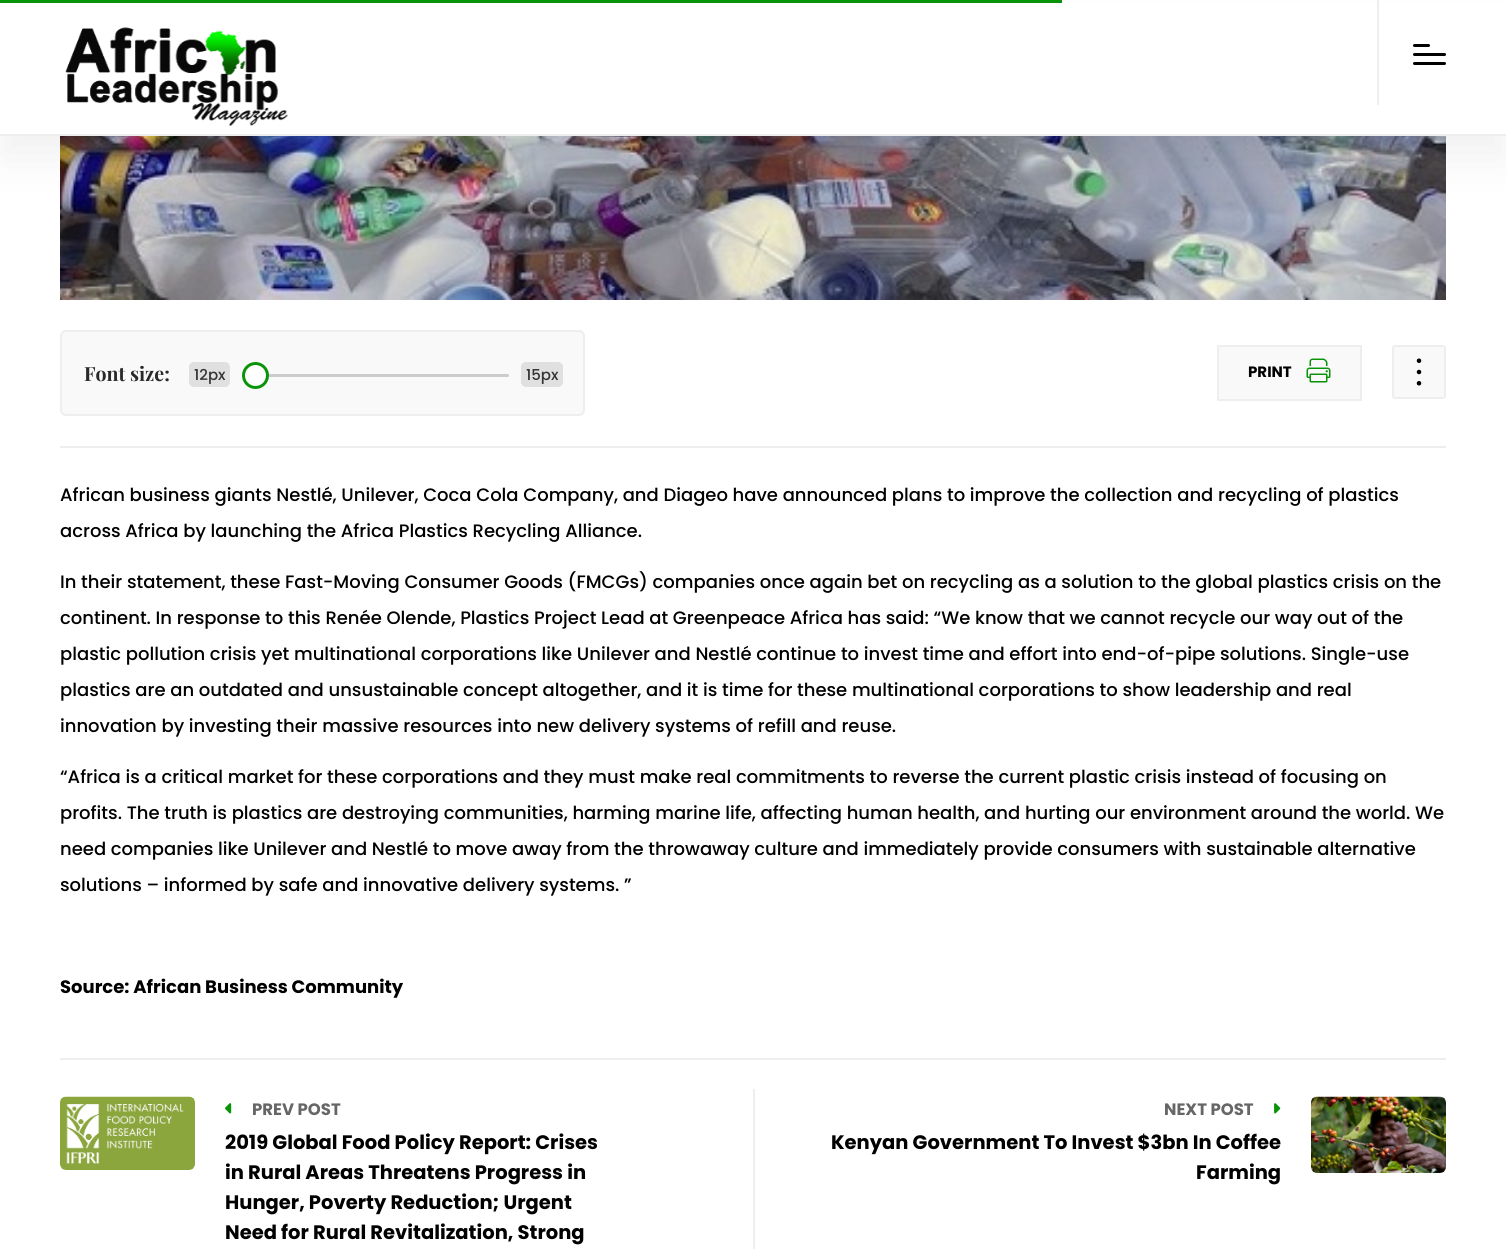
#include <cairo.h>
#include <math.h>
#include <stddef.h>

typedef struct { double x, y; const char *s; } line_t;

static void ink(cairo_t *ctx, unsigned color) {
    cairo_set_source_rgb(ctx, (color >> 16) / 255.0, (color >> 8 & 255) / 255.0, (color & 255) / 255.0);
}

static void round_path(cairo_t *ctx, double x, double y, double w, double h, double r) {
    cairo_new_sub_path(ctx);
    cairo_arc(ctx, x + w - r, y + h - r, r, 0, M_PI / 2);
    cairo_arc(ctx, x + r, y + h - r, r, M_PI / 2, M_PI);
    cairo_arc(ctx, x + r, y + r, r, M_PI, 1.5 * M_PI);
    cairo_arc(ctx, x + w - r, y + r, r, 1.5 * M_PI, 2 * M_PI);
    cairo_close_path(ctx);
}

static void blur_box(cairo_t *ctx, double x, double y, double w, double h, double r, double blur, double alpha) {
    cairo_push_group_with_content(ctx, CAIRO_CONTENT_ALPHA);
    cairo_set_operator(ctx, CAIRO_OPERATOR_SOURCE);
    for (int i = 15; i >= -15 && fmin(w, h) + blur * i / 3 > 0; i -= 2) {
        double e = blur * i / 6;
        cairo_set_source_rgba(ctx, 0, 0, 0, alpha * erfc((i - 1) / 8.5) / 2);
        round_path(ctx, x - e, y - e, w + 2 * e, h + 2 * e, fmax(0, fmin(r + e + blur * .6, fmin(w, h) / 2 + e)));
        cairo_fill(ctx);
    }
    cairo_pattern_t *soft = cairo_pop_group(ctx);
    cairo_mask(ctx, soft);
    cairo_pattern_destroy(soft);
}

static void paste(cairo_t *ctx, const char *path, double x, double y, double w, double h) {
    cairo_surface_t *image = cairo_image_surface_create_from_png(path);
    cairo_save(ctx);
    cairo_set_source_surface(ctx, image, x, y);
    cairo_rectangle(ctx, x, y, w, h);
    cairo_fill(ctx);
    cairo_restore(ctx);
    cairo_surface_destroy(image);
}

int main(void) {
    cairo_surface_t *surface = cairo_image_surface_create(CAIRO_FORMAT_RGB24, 1506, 1249);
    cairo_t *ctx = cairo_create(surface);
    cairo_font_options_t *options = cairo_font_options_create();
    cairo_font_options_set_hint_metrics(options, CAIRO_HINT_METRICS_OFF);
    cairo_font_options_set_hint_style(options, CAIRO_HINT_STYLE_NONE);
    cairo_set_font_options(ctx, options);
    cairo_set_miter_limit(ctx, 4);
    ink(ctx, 0xFFFFFF);
    cairo_paint(ctx);
    paste(ctx, "media/2.png", 60, 136, 1386, 164);
    ink(ctx, 0x000000);
    blur_box(ctx, 0, 23, 1506, 135, 0, 22.5, 0.06);
    ink(ctx, 0xFFFFFF);
    cairo_rectangle(ctx, 0, 1, 1506, 133);
    cairo_fill(ctx);
    ink(ctx, 0xEEEEEE);
    cairo_rectangle(ctx, 0, 134, 1506, 2);
    cairo_fill(ctx);
    paste(ctx, "media/1.png", 65, 27, 223, 99);
    cairo_rectangle(ctx, 1377, 0, 2, 105);
    cairo_fill(ctx);
    ink(ctx, 0x000000);
    round_path(ctx, 1413, 44, 17, 3, 1.5);
    cairo_fill(ctx);
    round_path(ctx, 1413, 53, 33, 3, 1.5);
    cairo_fill(ctx);
    round_path(ctx, 1413, 62, 33, 3, 1.5);
    cairo_fill(ctx);
    ink(ctx, 0x099307);
    cairo_rectangle(ctx, 0, 0, 1062, 3);
    cairo_fill(ctx);
    ink(ctx, 0xEEEEEE);
    cairo_rectangle(ctx, 60, 446, 1386, 2);
    cairo_fill(ctx);
    ink(ctx, 0xF9F9F9);
    round_path(ctx, 61, 331, 523, 84, 5);
    cairo_fill_preserve(ctx);
    ink(ctx, 0xEEEEEE);
    cairo_stroke(ctx);
    cairo_select_font_face(ctx, "Playfair Display", CAIRO_FONT_SLANT_NORMAL, CAIRO_FONT_WEIGHT_BOLD);
    cairo_set_font_size(ctx, 19.5);
    ink(ctx, 0x292929);
    cairo_move_to(ctx, 84, 381);
    cairo_show_text(ctx, "Font size:");
    ink(ctx, 0xCCCCCC);
    cairo_rectangle(ctx, 266, 374, 219, 3);
    cairo_fill(ctx);
    ink(ctx, 0x099307);
    cairo_arc(ctx, 255.5, 375.5, 13.5, 0, 2 * M_PI);
    cairo_fill(ctx);
    ink(ctx, 0xFFFFFF);
    cairo_arc(ctx, 255.5, 375.5, 10.5, 0, 2 * M_PI);
    cairo_fill(ctx);
    ink(ctx, 0xE0E0E0);
    round_path(ctx, 189, 362, 41, 25, 5);
    cairo_fill(ctx);
    cairo_select_font_face(ctx, "Poppins Medium", CAIRO_FONT_SLANT_NORMAL, CAIRO_FONT_WEIGHT_NORMAL);
    cairo_set_font_size(ctx, 15);
    ink(ctx, 0x333333);
    cairo_move_to(ctx, 194, 380);
    cairo_show_text(ctx, "12px");
    ink(ctx, 0xCCCCCC);
    cairo_new_path(ctx);
    cairo_move_to(ctx, 480, 374);
    cairo_line_to(ctx, 507.5, 374);
    cairo_curve_to(ctx, 508.5, 374, 509, 374.5, 509, 375.5);
    cairo_curve_to(ctx, 509, 376.5, 508.5, 377, 507.5, 377);
    cairo_line_to(ctx, 480, 377);
    cairo_close_path(ctx);
    cairo_fill(ctx);
    ink(ctx, 0xE0E0E0);
    round_path(ctx, 521, 362, 42, 25, 5);
    cairo_fill(ctx);
    ink(ctx, 0x333333);
    cairo_move_to(ctx, 526, 380);
    cairo_show_text(ctx, "15px");
    ink(ctx, 0xF9F9F9);
    cairo_rectangle(ctx, 1218, 346, 143, 54);
    cairo_fill_preserve(ctx);
    ink(ctx, 0xEEEEEE);
    cairo_stroke(ctx);
    cairo_select_font_face(ctx, "Poppins", CAIRO_FONT_SLANT_NORMAL, CAIRO_FONT_WEIGHT_BOLD);
    ink(ctx, 0x000000);
    cairo_move_to(ctx, 1248, 377);
    cairo_show_text(ctx, "PRINT");
    paste(ctx, "media/3.png", 1306, 358, 25, 25);
    ink(ctx, 0xF9F9F9);
    round_path(ctx, 1393, 346, 52, 52, 2);
    cairo_fill_preserve(ctx);
    ink(ctx, 0xEEEEEE);
    cairo_stroke(ctx);
    paste(ctx, "media/4.png", 1416, 358, 6, 28);
    cairo_select_font_face(ctx, "Poppins Medium", CAIRO_FONT_SLANT_NORMAL, CAIRO_FONT_WEIGHT_NORMAL);
    cairo_set_font_size(ctx, 18);
    ink(ctx, 0x000000);
    {
        static const line_t items[] = {
            {60, 501, "African business giants Nestlé, Unilever, Coca Cola Company, and Diageo have announced plans to improve the collection and recycling of plastics"},
            {60, 537, "across Africa by launching the Africa Plastics Recycling Alliance."},
            {60, 588, "In their statement, these Fast-Moving Consumer Goods (FMCGs) companies once again bet on recycling as a solution to the global plastics crisis on the"},
            {60, 624, "continent. In response to this Renée Olende, Plastics Project Lead at Greenpeace Africa has said: “We know that we cannot recycle our way out of the"},
            {60, 660, "plastic pollution crisis yet multinational corporations like Unilever and Nestlé continue to invest time and effort into end-of-pipe solutions. Single-use"},
            {60, 696, "plastics are an outdated and unsustainable concept altogether, and it is time for these multinational corporations to show leadership and real"},
            {60, 732, "innovation by investing their massive resources into new delivery systems of refill and reuse."},
            {60, 783, "“Africa is a critical market for these corporations and they must make real commitments to reverse the current plastic crisis instead of focusing on"},
            {60, 819, "profits. The truth is plastics are destroying communities, harming marine life, affecting human health, and hurting our environment around the world. We"},
            {60, 855, "need companies like Unilever and Nestlé to move away from the throwaway culture and immediately provide consumers with sustainable alternative"},
            {60, 891, "solutions – informed by safe and innovative delivery systems. ”"},
        };
        for (size_t i = 0; i < sizeof items / sizeof *items; i++) {
            cairo_move_to(ctx, items[i].x, items[i].y);
            cairo_show_text(ctx, items[i].s);
        }
    }
    cairo_select_font_face(ctx, "Poppins", CAIRO_FONT_SLANT_NORMAL, CAIRO_FONT_WEIGHT_BOLD);
    cairo_move_to(ctx, 60, 993);
    cairo_show_text(ctx, "Source: African Business Community");
    ink(ctx, 0xEEEEEE);
    cairo_rectangle(ctx, 60, 1058, 1386, 2);
    cairo_fill(ctx);
    paste(ctx, "media/5.png", 60, 1096, 135, 74);
    paste(ctx, "media/6.png", 225, 1103, 7, 11);
    cairo_set_font_size(ctx, 16.5);
    ink(ctx, 0x666666);
    cairo_move_to(ctx, 252, 1115);
    cairo_show_text(ctx, "PREV POST");
    cairo_set_font_size(ctx, 19.5);
    ink(ctx, 0x000000);
    {
        static const line_t items[] = {
            {225, 1149, "2019 Global Food Policy Report: Crises"},
            {225, 1179, "in Rural Areas Threatens Progress in"},
            {225, 1209, "Hunger, Poverty Reduction; Urgent"},
            {225, 1239, "Need for Rural Revitalization, Strong"},
        };
        for (size_t i = 0; i < sizeof items / sizeof *items; i++) {
            cairo_move_to(ctx, items[i].x, items[i].y);
            cairo_show_text(ctx, items[i].s);
        }
    }
    ink(ctx, 0xEEEEEE);
    cairo_rectangle(ctx, 753, 1089, 2, 160);
    cairo_fill(ctx);
    cairo_set_font_size(ctx, 16.5);
    ink(ctx, 0x666666);
    cairo_move_to(ctx, 1164, 1115);
    cairo_show_text(ctx, "NEXT POST");
    paste(ctx, "media/7.png", 1274, 1103, 7, 11);
    cairo_set_font_size(ctx, 19.5);
    ink(ctx, 0x000000);
    cairo_move_to(ctx, 831, 1149);
    cairo_show_text(ctx, "Kenyan Government To Invest $3bn In Coffee");
    cairo_move_to(ctx, 1196, 1179);
    cairo_show_text(ctx, "Farming");
    paste(ctx, "media/8.png", 1311, 1096, 135, 77);
    cairo_surface_write_to_png(surface, "image.png");
    cairo_font_options_destroy(options);
    cairo_destroy(ctx);
    cairo_surface_destroy(surface);
    return 0;
}
